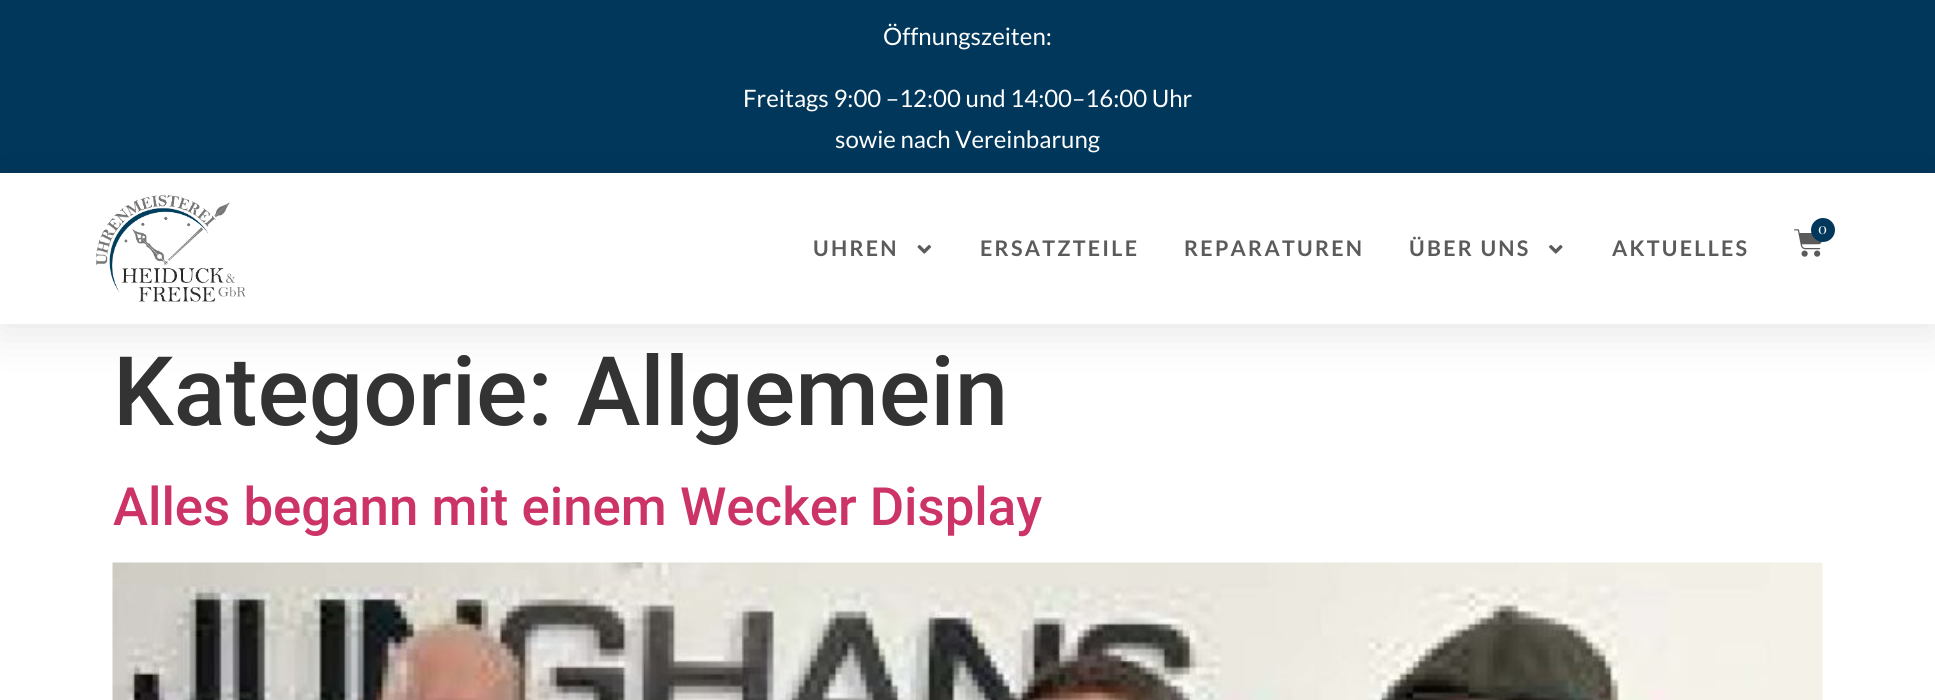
#include <cairo.h>
#include <math.h>
#include <stddef.h>

typedef struct { double x, y; const char *s; } line_t;

static void ink(cairo_t *ctx, unsigned color) {
    cairo_set_source_rgb(ctx, (color >> 16) / 255.0, (color >> 8 & 255) / 255.0, (color & 255) / 255.0);
}

static void write_spaced(cairo_t *ctx, double x, double y, const char *s, double letter, double word) {
    cairo_move_to(ctx, x, y);
    while (*s) {
        char ch[5] = {0};
        int n = 0;
        do ch[n++] = *s++; while ((*s & 0xC0) == 0x80);
        cairo_show_text(ctx, ch);
        cairo_rel_move_to(ctx, letter + word * (*ch == ' '), 0);
    }
}

static void round_path(cairo_t *ctx, double x, double y, double w, double h, double r) {
    cairo_new_sub_path(ctx);
    cairo_arc(ctx, x + w - r, y + h - r, r, 0, M_PI / 2);
    cairo_arc(ctx, x + r, y + h - r, r, M_PI / 2, M_PI);
    cairo_arc(ctx, x + r, y + r, r, M_PI, 1.5 * M_PI);
    cairo_arc(ctx, x + w - r, y + r, r, 1.5 * M_PI, 2 * M_PI);
    cairo_close_path(ctx);
}

static void blur_box(cairo_t *ctx, double x, double y, double w, double h, double r, double blur, double alpha) {
    cairo_push_group_with_content(ctx, CAIRO_CONTENT_ALPHA);
    cairo_set_operator(ctx, CAIRO_OPERATOR_SOURCE);
    for (int i = 15; i >= -15 && fmin(w, h) + blur * i / 3 > 0; i -= 2) {
        double e = blur * i / 6;
        cairo_set_source_rgba(ctx, 0, 0, 0, alpha * erfc((i - 1) / 8.5) / 2);
        round_path(ctx, x - e, y - e, w + 2 * e, h + 2 * e, fmax(0, fmin(r + e + blur * .6, fmin(w, h) / 2 + e)));
        cairo_fill(ctx);
    }
    cairo_pattern_t *soft = cairo_pop_group(ctx);
    cairo_mask(ctx, soft);
    cairo_pattern_destroy(soft);
}

static void paste(cairo_t *ctx, const char *path, double x, double y, double w, double h) {
    cairo_surface_t *image = cairo_image_surface_create_from_png(path);
    cairo_save(ctx);
    cairo_set_source_surface(ctx, image, x, y);
    cairo_rectangle(ctx, x, y, w, h);
    cairo_fill(ctx);
    cairo_restore(ctx);
    cairo_surface_destroy(image);
}

int main(void) {
    cairo_surface_t *surface = cairo_image_surface_create(CAIRO_FORMAT_RGB24, 1935, 700);
    cairo_t *ctx = cairo_create(surface);
    cairo_font_options_t *options = cairo_font_options_create();
    cairo_font_options_set_hint_metrics(options, CAIRO_HINT_METRICS_OFF);
    cairo_font_options_set_hint_style(options, CAIRO_HINT_STYLE_NONE);
    cairo_set_font_options(ctx, options);
    cairo_set_miter_limit(ctx, 4);
    ink(ctx, 0xFFFFFF);
    cairo_paint(ctx);
    ink(ctx, 0x00375B);
    cairo_rectangle(ctx, 0, 0, 1935, 173);
    cairo_fill(ctx);
    cairo_select_font_face(ctx, "Lato", CAIRO_FONT_SLANT_NORMAL, CAIRO_FONT_WEIGHT_NORMAL);
    cairo_set_font_size(ctx, 24);
    ink(ctx, 0xFFFFFF);
    {
        static const line_t items[] = {
            {883, 45, "Öffnungszeiten:"},
            {743, 107, "Freitags 9:00 –12:00 und 14:00–16:00 Uhr"},
            {835, 148, "sowie nach Vereinbarung"},
        };
        for (size_t i = 0; i < sizeof items / sizeof *items; i++) {
            cairo_move_to(ctx, items[i].x, items[i].y);
            cairo_show_text(ctx, items[i].s);
        }
    }
    cairo_save(ctx);
    cairo_set_fill_rule(ctx, CAIRO_FILL_RULE_EVEN_ODD);
    cairo_new_path(ctx);
    cairo_move_to(ctx, 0, 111);
    cairo_line_to(ctx, 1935, 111);
    cairo_line_to(ctx, 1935, 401);
    cairo_line_to(ctx, 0, 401);
    cairo_close_path(ctx);
    cairo_move_to(ctx, 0, 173);
    cairo_line_to(ctx, 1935, 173);
    cairo_line_to(ctx, 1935, 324);
    cairo_line_to(ctx, 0, 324);
    cairo_close_path(ctx);
    cairo_clip(ctx);
    ink(ctx, 0x000000);
    blur_box(ctx, 0, 180, 1935, 152, 0, 22.5, 0.1);
    cairo_restore(ctx);
    paste(ctx, "media/1.png", 96, 195, 150, 107);
    paste(ctx, "media/2.png", 1794, 229, 28, 28);
    ink(ctx, 0x00375B);
    cairo_arc(ctx, 1823, 230, 12, 0, 2 * M_PI);
    cairo_fill(ctx);
    cairo_select_font_face(ctx, "Playfair Display", CAIRO_FONT_SLANT_NORMAL, CAIRO_FONT_WEIGHT_NORMAL);
    cairo_set_font_size(ctx, 15);
    ink(ctx, 0xFFFFFF);
    cairo_move_to(ctx, 1818, 234);
    cairo_show_text(ctx, "0");
    cairo_select_font_face(ctx, "Lato", CAIRO_FONT_SLANT_NORMAL, CAIRO_FONT_WEIGHT_BOLD);
    cairo_set_font_size(ctx, 21.5);
    ink(ctx, 0x5B5B5B);
    write_spaced(ctx, 813, 256, "UHREN", 2.25, 0);
    paste(ctx, "media/3.png", 917, 245, 14, 9);
    {
        static const line_t items[] = {
            {980, 256, "ERSATZTEILE"},
            {1184, 256, "REPARATUREN"},
            {1409, 256, "ÜBER UNS"},
        };
        for (size_t i = 0; i < sizeof items / sizeof *items; i++) {
            write_spaced(ctx, items[i].x, items[i].y, items[i].s, 2.25, 0);
        }
    }
    paste(ctx, "media/4.png", 1549, 245, 14, 9);
    write_spaced(ctx, 1612, 256, "AKTUELLES", 2.25, 0);
    cairo_select_font_face(ctx, "Roboto Medium", CAIRO_FONT_SLANT_NORMAL, CAIRO_FONT_WEIGHT_NORMAL);
    cairo_set_font_size(ctx, 96);
    ink(ctx, 0x333333);
    cairo_move_to(ctx, 113, 425);
    cairo_show_text(ctx, "Kategorie: Allgemein");
    cairo_set_font_size(ctx, 52.75);
    ink(ctx, 0xCC3366);
    cairo_move_to(ctx, 113, 525);
    cairo_show_text(ctx, "Alles begann mit einem Wecker Display");
    paste(ctx, "media/5.png", 112, 562, 1711, 138);
    cairo_surface_write_to_png(surface, "image.png");
    cairo_font_options_destroy(options);
    cairo_destroy(ctx);
    cairo_surface_destroy(surface);
    return 0;
}
